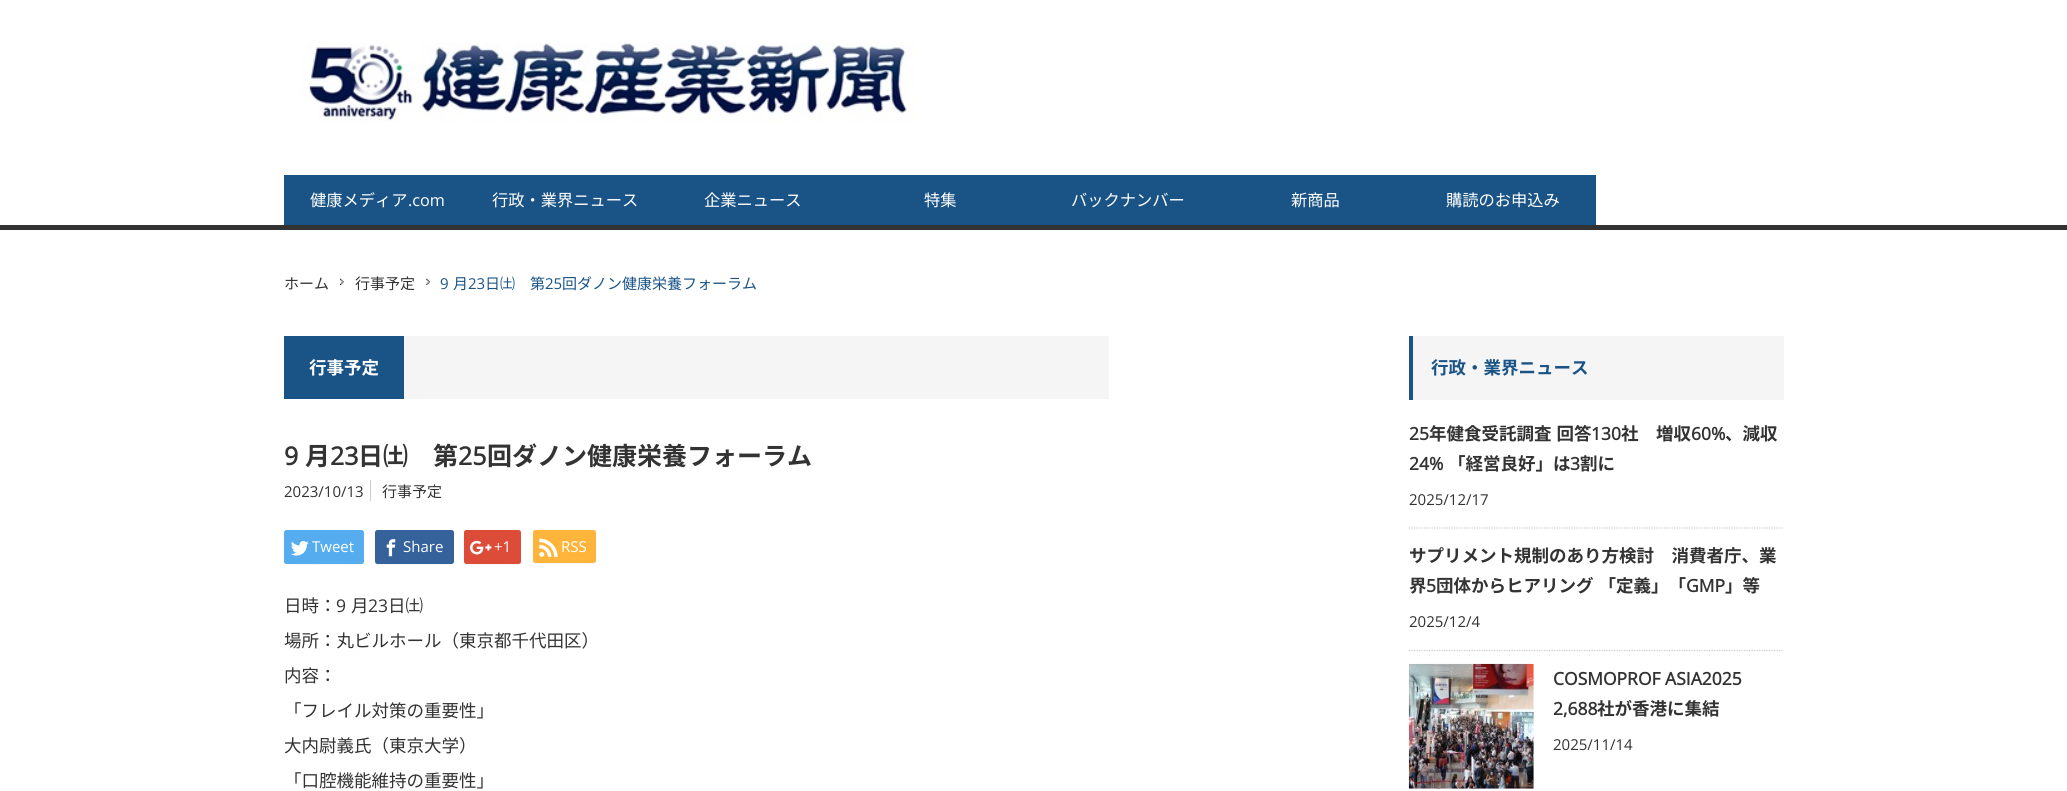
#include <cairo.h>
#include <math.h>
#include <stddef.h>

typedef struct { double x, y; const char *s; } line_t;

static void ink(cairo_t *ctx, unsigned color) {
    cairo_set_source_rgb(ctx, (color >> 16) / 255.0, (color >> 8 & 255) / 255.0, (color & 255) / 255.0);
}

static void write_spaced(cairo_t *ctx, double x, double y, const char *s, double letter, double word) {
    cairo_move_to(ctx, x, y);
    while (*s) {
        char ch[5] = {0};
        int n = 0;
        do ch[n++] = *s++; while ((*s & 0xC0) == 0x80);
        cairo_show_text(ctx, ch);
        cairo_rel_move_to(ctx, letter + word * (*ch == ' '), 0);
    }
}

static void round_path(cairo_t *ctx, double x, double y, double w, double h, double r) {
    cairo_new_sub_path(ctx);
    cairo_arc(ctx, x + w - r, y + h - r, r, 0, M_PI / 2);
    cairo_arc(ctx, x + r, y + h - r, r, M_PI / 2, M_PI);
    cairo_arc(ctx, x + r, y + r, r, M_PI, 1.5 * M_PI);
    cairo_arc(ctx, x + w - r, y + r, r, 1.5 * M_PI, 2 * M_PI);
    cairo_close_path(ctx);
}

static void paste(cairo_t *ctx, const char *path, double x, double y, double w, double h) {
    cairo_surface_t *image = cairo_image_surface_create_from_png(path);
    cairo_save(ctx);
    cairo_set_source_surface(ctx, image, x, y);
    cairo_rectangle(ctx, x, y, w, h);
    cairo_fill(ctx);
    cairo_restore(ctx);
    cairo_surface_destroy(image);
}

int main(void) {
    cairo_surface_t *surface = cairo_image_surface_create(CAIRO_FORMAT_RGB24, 2067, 791);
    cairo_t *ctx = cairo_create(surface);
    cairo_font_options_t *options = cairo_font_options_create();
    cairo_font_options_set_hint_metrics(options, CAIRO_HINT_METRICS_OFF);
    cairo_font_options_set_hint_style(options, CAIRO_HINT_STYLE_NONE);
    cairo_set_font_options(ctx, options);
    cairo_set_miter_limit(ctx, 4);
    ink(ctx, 0xFFFFFF);
    cairo_paint(ctx);
    ink(ctx, 0x333333);
    cairo_rectangle(ctx, 0, 225, 2067, 5);
    cairo_fill(ctx);
    paste(ctx, "media/1.png", 299, 42, 617, 81);
    ink(ctx, 0x1A5487);
    cairo_rectangle(ctx, 284, 175, 1312, 50);
    cairo_fill(ctx);
    cairo_select_font_face(ctx, "Noto Sans JP", CAIRO_FONT_SLANT_NORMAL, CAIRO_FONT_WEIGHT_NORMAL);
    cairo_set_font_size(ctx, 16.25);
    ink(ctx, 0xFFFFFF);
    cairo_move_to(ctx, 310, 206);
    cairo_show_text(ctx, "健康メディア");
    cairo_select_font_face(ctx, "Open Sans", CAIRO_FONT_SLANT_NORMAL, CAIRO_FONT_WEIGHT_NORMAL);
    cairo_move_to(ctx, 408, 206);
    cairo_show_text(ctx, ".com");
    cairo_select_font_face(ctx, "Noto Sans JP", CAIRO_FONT_SLANT_NORMAL, CAIRO_FONT_WEIGHT_NORMAL);
    {
        static const line_t items[] = {
            {492, 206, "行政・業界ニュース"},
            {704, 206, "企業ニュース"},
            {924, 206, "特集"},
            {1071, 206, "バックナンバー"},
            {1291, 206, "新商品"},
            {1446, 206, "購読のお申込み"},
        };
        for (size_t i = 0; i < sizeof items / sizeof *items; i++) {
            cairo_move_to(ctx, items[i].x, items[i].y);
            cairo_show_text(ctx, items[i].s);
        }
    }
    cairo_set_font_size(ctx, 15);
    ink(ctx, 0x333333);
    cairo_move_to(ctx, 284, 289);
    cairo_show_text(ctx, "ホーム");
    paste(ctx, "media/2.png", 340, 278, 4, 7);
    cairo_move_to(ctx, 355, 289);
    cairo_show_text(ctx, "行事予定");
    paste(ctx, "media/3.png", 426, 278, 4, 7);
    cairo_select_font_face(ctx, "Open Sans", CAIRO_FONT_SLANT_NORMAL, CAIRO_FONT_WEIGHT_NORMAL);
    ink(ctx, 0x1A5487);
    cairo_move_to(ctx, 440, 289);
    cairo_show_text(ctx, "9");
    cairo_select_font_face(ctx, "Noto Sans JP", CAIRO_FONT_SLANT_NORMAL, CAIRO_FONT_WEIGHT_NORMAL);
    cairo_move_to(ctx, 453, 289);
    cairo_show_text(ctx, "月");
    cairo_select_font_face(ctx, "Open Sans", CAIRO_FONT_SLANT_NORMAL, CAIRO_FONT_WEIGHT_NORMAL);
    cairo_move_to(ctx, 468, 289);
    cairo_show_text(ctx, "23");
    cairo_select_font_face(ctx, "Noto Sans JP", CAIRO_FONT_SLANT_NORMAL, CAIRO_FONT_WEIGHT_NORMAL);
    cairo_move_to(ctx, 485, 289);
    cairo_show_text(ctx, "日㈯　第");
    cairo_select_font_face(ctx, "Open Sans", CAIRO_FONT_SLANT_NORMAL, CAIRO_FONT_WEIGHT_NORMAL);
    cairo_move_to(ctx, 545, 289);
    cairo_show_text(ctx, "25");
    cairo_select_font_face(ctx, "Noto Sans JP", CAIRO_FONT_SLANT_NORMAL, CAIRO_FONT_WEIGHT_NORMAL);
    cairo_move_to(ctx, 562, 289);
    cairo_show_text(ctx, "回ダノン健康栄養フォーラム");
    ink(ctx, 0xF5F5F5);
    cairo_rectangle(ctx, 404, 336, 705, 63);
    cairo_fill(ctx);
    ink(ctx, 0x1A5487);
    cairo_rectangle(ctx, 284, 336, 120, 63);
    cairo_fill(ctx);
    cairo_select_font_face(ctx, "Noto Sans JP", CAIRO_FONT_SLANT_NORMAL, CAIRO_FONT_WEIGHT_BOLD);
    cairo_set_font_size(ctx, 17.5);
    ink(ctx, 0xFFFFFF);
    cairo_move_to(ctx, 309, 374);
    cairo_show_text(ctx, "行事予定");
    cairo_select_font_face(ctx, "Open Sans", CAIRO_FONT_SLANT_NORMAL, CAIRO_FONT_WEIGHT_BOLD);
    cairo_set_font_size(ctx, 25);
    ink(ctx, 0x333333);
    cairo_move_to(ctx, 284, 465);
    cairo_show_text(ctx, "9");
    cairo_select_font_face(ctx, "Noto Sans JP", CAIRO_FONT_SLANT_NORMAL, CAIRO_FONT_WEIGHT_BOLD);
    cairo_move_to(ctx, 305, 465);
    cairo_show_text(ctx, "月");
    cairo_select_font_face(ctx, "Open Sans", CAIRO_FONT_SLANT_NORMAL, CAIRO_FONT_WEIGHT_BOLD);
    cairo_move_to(ctx, 330, 465);
    cairo_show_text(ctx, "23");
    cairo_select_font_face(ctx, "Noto Sans JP", CAIRO_FONT_SLANT_NORMAL, CAIRO_FONT_WEIGHT_BOLD);
    cairo_move_to(ctx, 358, 465);
    cairo_show_text(ctx, "日㈯　第");
    cairo_select_font_face(ctx, "Open Sans", CAIRO_FONT_SLANT_NORMAL, CAIRO_FONT_WEIGHT_BOLD);
    cairo_move_to(ctx, 458, 465);
    cairo_show_text(ctx, "25");
    cairo_select_font_face(ctx, "Noto Sans JP", CAIRO_FONT_SLANT_NORMAL, CAIRO_FONT_WEIGHT_BOLD);
    cairo_move_to(ctx, 487, 465);
    cairo_show_text(ctx, "回ダノン健康栄養フォーラム");
    cairo_select_font_face(ctx, "Open Sans", CAIRO_FONT_SLANT_NORMAL, CAIRO_FONT_WEIGHT_NORMAL);
    cairo_set_font_size(ctx, 15);
    cairo_move_to(ctx, 284, 497);
    cairo_show_text(ctx, "2023/10/13");
    ink(ctx, 0xCCCCCC);
    cairo_rectangle(ctx, 370, 480, 1, 21);
    cairo_fill(ctx);
    cairo_select_font_face(ctx, "Noto Sans JP", CAIRO_FONT_SLANT_NORMAL, CAIRO_FONT_WEIGHT_NORMAL);
    ink(ctx, 0x333333);
    cairo_move_to(ctx, 382, 497);
    cairo_show_text(ctx, "行事予定");
    ink(ctx, 0xF7F7F7);
    cairo_new_path(ctx);
    cairo_move_to(ctx, 284, 562);
    cairo_line_to(ctx, 285, 564);
    cairo_curve_to(ctx, 286, 566, 319, 565, 324, 565);
    cairo_line_to(ctx, 349, 565);
    cairo_curve_to(ctx, 366, 565, 364, 568, 364, 553);
    cairo_line_to(ctx, 364, 532);
    cairo_line_to(ctx, 364, 556);
    cairo_curve_to(ctx, 364, 567, 362, 564, 349, 564);
    cairo_line_to(ctx, 299, 564);
    cairo_curve_to(ctx, 299, 564, 286, 566, 284, 562);
    cairo_close_path(ctx);
    cairo_fill(ctx);
    ink(ctx, 0x55ACEE);
    round_path(ctx, 284, 530, 80, 34, 2.5);
    cairo_fill(ctx);
    paste(ctx, "media/4.png", 291, 541, 18, 15);
    cairo_select_font_face(ctx, "Open Sans", CAIRO_FONT_SLANT_NORMAL, CAIRO_FONT_WEIGHT_NORMAL);
    ink(ctx, 0xFFFFFF);
    cairo_move_to(ctx, 312, 552);
    cairo_show_text(ctx, "Tweet");
    ink(ctx, 0xF7F7F7);
    cairo_new_path(ctx);
    cairo_move_to(ctx, 375, 561);
    cairo_curve_to(ctx, 375, 568, 385, 565, 390, 565);
    cairo_line_to(ctx, 439, 565);
    cairo_curve_to(ctx, 458, 565, 454, 567, 454, 548);
    cairo_line_to(ctx, 454, 532);
    cairo_line_to(ctx, 454, 556);
    cairo_curve_to(ctx, 454, 567, 452, 564, 439, 564);
    cairo_line_to(ctx, 390, 564);
    cairo_curve_to(ctx, 385, 564, 375, 566, 375, 561);
    cairo_close_path(ctx);
    cairo_fill(ctx);
    ink(ctx, 0x35629A);
    round_path(ctx, 375, 530, 79, 34, 2.5);
    cairo_fill(ctx);
    paste(ctx, "media/5.png", 386, 539, 10, 18);
    ink(ctx, 0xFFFFFF);
    cairo_move_to(ctx, 403, 552);
    cairo_show_text(ctx, "Share");
    ink(ctx, 0xF7F7F7);
    cairo_new_path(ctx);
    cairo_move_to(ctx, 464, 562);
    cairo_curve_to(ctx, 464, 567, 474, 565, 475, 565);
    cairo_line_to(ctx, 510, 565);
    cairo_curve_to(ctx, 511, 565, 521, 567, 521, 562);
    cairo_line_to(ctx, 519, 564);
    cairo_line_to(ctx, 466, 564);
    cairo_close_path(ctx);
    cairo_fill(ctx);
    ink(ctx, 0xDD4B39);
    round_path(ctx, 464, 530, 57, 34, 2.5);
    cairo_fill(ctx);
    paste(ctx, "media/6.png", 470, 540, 22, 15);
    ink(ctx, 0xFFFFFF);
    cairo_move_to(ctx, 494, 552);
    cairo_show_text(ctx, "+1");
    ink(ctx, 0xF7F7F7);
    cairo_new_path(ctx);
    cairo_move_to(ctx, 533, 562);
    cairo_curve_to(ctx, 533, 563, 534, 564, 536, 564);
    cairo_line_to(ctx, 594, 564);
    cairo_curve_to(ctx, 595, 564, 596, 563, 596, 562);
    cairo_line_to(ctx, 596, 561);
    cairo_line_to(ctx, 594, 562);
    cairo_line_to(ctx, 535, 562);
    cairo_close_path(ctx);
    cairo_fill(ctx);
    ink(ctx, 0xFFB53C);
    round_path(ctx, 533, 530, 63, 33, 2.5);
    cairo_fill(ctx);
    paste(ctx, "media/7.png", 539, 538, 19, 19);
    ink(ctx, 0xFFFFFF);
    cairo_move_to(ctx, 561, 552);
    cairo_show_text(ctx, "RSS");
    cairo_select_font_face(ctx, "Noto Sans JP", CAIRO_FONT_SLANT_NORMAL, CAIRO_FONT_WEIGHT_NORMAL);
    cairo_set_font_size(ctx, 17.5);
    ink(ctx, 0x333333);
    cairo_move_to(ctx, 284, 612);
    cairo_show_text(ctx, "日時：");
    cairo_select_font_face(ctx, "Open Sans", CAIRO_FONT_SLANT_NORMAL, CAIRO_FONT_WEIGHT_NORMAL);
    cairo_move_to(ctx, 336, 612);
    cairo_show_text(ctx, "9");
    cairo_select_font_face(ctx, "Noto Sans JP", CAIRO_FONT_SLANT_NORMAL, CAIRO_FONT_WEIGHT_NORMAL);
    cairo_move_to(ctx, 351, 612);
    cairo_show_text(ctx, "月");
    cairo_select_font_face(ctx, "Open Sans", CAIRO_FONT_SLANT_NORMAL, CAIRO_FONT_WEIGHT_NORMAL);
    cairo_move_to(ctx, 368, 612);
    cairo_show_text(ctx, "23");
    cairo_select_font_face(ctx, "Noto Sans JP", CAIRO_FONT_SLANT_NORMAL, CAIRO_FONT_WEIGHT_NORMAL);
    {
        static const line_t items[] = {
            {388, 612, "日㈯"},
            {284, 647, "場所：丸ビルホール（東京都千代田区）"},
            {284, 682, "内容："},
            {284, 717, "「フレイル対策の重要性」"},
            {284, 752, "大内尉義氏（東京大学）"},
            {284, 787, "「口腔機能維持の重要性」"},
        };
        for (size_t i = 0; i < sizeof items / sizeof *items; i++) {
            cairo_move_to(ctx, items[i].x, items[i].y);
            cairo_show_text(ctx, items[i].s);
        }
    }
    ink(ctx, 0xF5F5F5);
    cairo_rectangle(ctx, 1413, 336, 371, 64);
    cairo_fill(ctx);
    ink(ctx, 0x1A5487);
    cairo_rectangle(ctx, 1409, 336, 4, 64);
    cairo_fill(ctx);
    cairo_select_font_face(ctx, "Noto Sans JP", CAIRO_FONT_SLANT_NORMAL, CAIRO_FONT_WEIGHT_BOLD);
    cairo_move_to(ctx, 1431, 374);
    cairo_show_text(ctx, "行政・業界ニュース");
    cairo_new_path(ctx);
    cairo_move_to(ctx, 1409, 528);
    cairo_line_to(ctx, 1784, 528);
    ink(ctx, 0xCCCCCC);
    cairo_set_line_width(ctx, 1.2);
    cairo_set_dash(ctx, (double[]){1.25, 1.25}, 2, 0);
    cairo_stroke(ctx);
    cairo_select_font_face(ctx, "Open Sans", CAIRO_FONT_SLANT_NORMAL, CAIRO_FONT_WEIGHT_BOLD);
    ink(ctx, 0x333333);
    cairo_move_to(ctx, 1409, 440);
    cairo_show_text(ctx, "25");
    cairo_select_font_face(ctx, "Noto Sans JP", CAIRO_FONT_SLANT_NORMAL, CAIRO_FONT_WEIGHT_BOLD);
    write_spaced(ctx, 1429, 440, "年健食受託調査 回答", 0, 1);
    cairo_select_font_face(ctx, "Open Sans", CAIRO_FONT_SLANT_NORMAL, CAIRO_FONT_WEIGHT_BOLD);
    cairo_move_to(ctx, 1591, 440);
    cairo_show_text(ctx, "130");
    cairo_select_font_face(ctx, "Noto Sans JP", CAIRO_FONT_SLANT_NORMAL, CAIRO_FONT_WEIGHT_BOLD);
    cairo_move_to(ctx, 1621, 440);
    cairo_show_text(ctx, "社　増収");
    cairo_select_font_face(ctx, "Open Sans", CAIRO_FONT_SLANT_NORMAL, CAIRO_FONT_WEIGHT_BOLD);
    cairo_move_to(ctx, 1691, 440);
    cairo_show_text(ctx, "60%");
    cairo_select_font_face(ctx, "Noto Sans JP", CAIRO_FONT_SLANT_NORMAL, CAIRO_FONT_WEIGHT_BOLD);
    cairo_move_to(ctx, 1725, 440);
    cairo_show_text(ctx, "、減収");
    cairo_select_font_face(ctx, "Open Sans", CAIRO_FONT_SLANT_NORMAL, CAIRO_FONT_WEIGHT_BOLD);
    cairo_move_to(ctx, 1409, 470);
    cairo_show_text(ctx, "24%");
    cairo_select_font_face(ctx, "Noto Sans JP", CAIRO_FONT_SLANT_NORMAL, CAIRO_FONT_WEIGHT_BOLD);
    cairo_move_to(ctx, 1448, 470);
    cairo_show_text(ctx, "「経営良好」は");
    cairo_select_font_face(ctx, "Open Sans", CAIRO_FONT_SLANT_NORMAL, CAIRO_FONT_WEIGHT_BOLD);
    cairo_move_to(ctx, 1570, 470);
    cairo_show_text(ctx, "3");
    cairo_select_font_face(ctx, "Noto Sans JP", CAIRO_FONT_SLANT_NORMAL, CAIRO_FONT_WEIGHT_BOLD);
    cairo_move_to(ctx, 1580, 470);
    cairo_show_text(ctx, "割に");
    cairo_select_font_face(ctx, "Open Sans", CAIRO_FONT_SLANT_NORMAL, CAIRO_FONT_WEIGHT_NORMAL);
    cairo_set_font_size(ctx, 15);
    cairo_move_to(ctx, 1409, 505);
    cairo_show_text(ctx, "2025/12/17");
    cairo_new_path(ctx);
    cairo_move_to(ctx, 1409, 650.5);
    cairo_line_to(ctx, 1784, 650.5);
    ink(ctx, 0xCCCCCC);
    cairo_stroke(ctx);
    cairo_select_font_face(ctx, "Noto Sans JP", CAIRO_FONT_SLANT_NORMAL, CAIRO_FONT_WEIGHT_BOLD);
    cairo_set_font_size(ctx, 17.5);
    ink(ctx, 0x333333);
    cairo_move_to(ctx, 1409, 562);
    cairo_show_text(ctx, "サプリメント規制のあり方検討　消費者庁、業");
    cairo_move_to(ctx, 1409, 592);
    cairo_show_text(ctx, "界");
    cairo_select_font_face(ctx, "Open Sans", CAIRO_FONT_SLANT_NORMAL, CAIRO_FONT_WEIGHT_BOLD);
    cairo_move_to(ctx, 1426, 592);
    cairo_show_text(ctx, "5");
    cairo_select_font_face(ctx, "Noto Sans JP", CAIRO_FONT_SLANT_NORMAL, CAIRO_FONT_WEIGHT_BOLD);
    write_spaced(ctx, 1436, 592, "団体からヒアリング 「定義」「", 0, 1);
    cairo_select_font_face(ctx, "Open Sans", CAIRO_FONT_SLANT_NORMAL, CAIRO_FONT_WEIGHT_BOLD);
    cairo_move_to(ctx, 1686, 592);
    cairo_show_text(ctx, "GMP");
    cairo_select_font_face(ctx, "Noto Sans JP", CAIRO_FONT_SLANT_NORMAL, CAIRO_FONT_WEIGHT_BOLD);
    cairo_move_to(ctx, 1725, 592);
    cairo_show_text(ctx, "」等");
    cairo_select_font_face(ctx, "Open Sans", CAIRO_FONT_SLANT_NORMAL, CAIRO_FONT_WEIGHT_NORMAL);
    cairo_set_font_size(ctx, 15);
    cairo_move_to(ctx, 1409, 627);
    cairo_show_text(ctx, "2025/12/4");
    paste(ctx, "media/8.png", 1408, 663, 126, 126);
    cairo_select_font_face(ctx, "Open Sans", CAIRO_FONT_SLANT_NORMAL, CAIRO_FONT_WEIGHT_BOLD);
    cairo_set_font_size(ctx, 17.5);
    cairo_move_to(ctx, 1553, 685);
    cairo_show_text(ctx, "COSMOPROF ASIA2025");
    cairo_move_to(ctx, 1553, 715);
    cairo_show_text(ctx, "2,688");
    cairo_select_font_face(ctx, "Noto Sans JP", CAIRO_FONT_SLANT_NORMAL, CAIRO_FONT_WEIGHT_BOLD);
    cairo_move_to(ctx, 1597, 715);
    cairo_show_text(ctx, "社が香港に集結");
    cairo_select_font_face(ctx, "Open Sans", CAIRO_FONT_SLANT_NORMAL, CAIRO_FONT_WEIGHT_NORMAL);
    cairo_set_font_size(ctx, 15);
    cairo_move_to(ctx, 1553, 750);
    cairo_show_text(ctx, "2025/11/14");
    cairo_surface_write_to_png(surface, "image.png");
    cairo_font_options_destroy(options);
    cairo_destroy(ctx);
    cairo_surface_destroy(surface);
    return 0;
}
